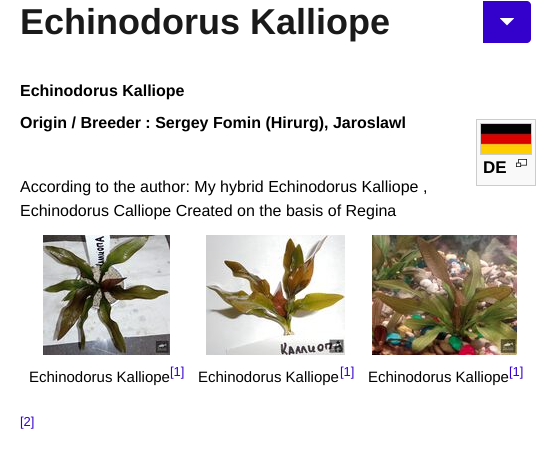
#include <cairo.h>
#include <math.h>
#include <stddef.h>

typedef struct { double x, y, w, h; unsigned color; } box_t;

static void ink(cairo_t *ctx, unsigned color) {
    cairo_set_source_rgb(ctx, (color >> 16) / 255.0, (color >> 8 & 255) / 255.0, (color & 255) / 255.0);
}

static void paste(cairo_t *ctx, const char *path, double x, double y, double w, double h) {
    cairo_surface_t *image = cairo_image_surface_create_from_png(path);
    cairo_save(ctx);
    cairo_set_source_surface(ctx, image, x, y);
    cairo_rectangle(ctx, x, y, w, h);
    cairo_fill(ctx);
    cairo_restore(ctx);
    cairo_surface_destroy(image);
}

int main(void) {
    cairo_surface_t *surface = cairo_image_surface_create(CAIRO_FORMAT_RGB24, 556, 452);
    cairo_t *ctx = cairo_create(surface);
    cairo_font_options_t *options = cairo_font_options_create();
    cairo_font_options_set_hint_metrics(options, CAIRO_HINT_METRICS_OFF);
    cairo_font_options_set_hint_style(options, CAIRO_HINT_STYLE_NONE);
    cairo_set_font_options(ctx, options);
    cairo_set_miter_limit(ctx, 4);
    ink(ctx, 0xFFFFFF);
    cairo_paint(ctx);
    cairo_select_font_face(ctx, "Liberation Sans", CAIRO_FONT_SLANT_NORMAL, CAIRO_FONT_WEIGHT_BOLD);
    cairo_set_font_size(ctx, 36);
    ink(ctx, 0x1A1A1A);
    cairo_move_to(ctx, 20, 34);
    cairo_show_text(ctx, "Echinodorus Kalliope");
    ink(ctx, 0x3300CC);
    cairo_new_path(ctx);
    cairo_move_to(ctx, 483, 1);
    cairo_line_to(ctx, 527, 1);
    cairo_curve_to(ctx, 529, 1, 531, 3, 531, 5);
    cairo_line_to(ctx, 531, 39);
    cairo_curve_to(ctx, 531, 41, 529, 43, 527, 43);
    cairo_line_to(ctx, 483, 43);
    cairo_close_path(ctx);
    cairo_fill(ctx);
    paste(ctx, "media/1.png", 500, 18, 14, 8);
    cairo_set_font_size(ctx, 16);
    ink(ctx, 0x000000);
    cairo_move_to(ctx, 20, 96);
    cairo_show_text(ctx, "Echinodorus Kalliope");
    cairo_move_to(ctx, 20, 128);
    cairo_show_text(ctx, "Origin / Breeder : Sergey Fomin (Hirurg), Jaroslawl");
    {
        static const box_t items[] = {
            {477, 120, 58, 65, 0xF9F9F9},
            {476, 119, 60, 1, 0xCCCCCC},
            {476, 185, 60, 1, 0xCCCCCC},
            {535, 119, 1, 67, 0xCCCCCC},
            {476, 119, 1, 67, 0xCCCCCC},
        };
        for (size_t i = 0; i < sizeof items / sizeof *items; i++) {
            ink(ctx, items[i].color);
            cairo_rectangle(ctx, items[i].x, items[i].y, items[i].w, items[i].h);
            cairo_fill(ctx);
        }
    }
    cairo_rectangle(ctx, 480.5, 123.5, 51, 31);
    cairo_set_line_width(ctx, 1);
    cairo_stroke(ctx);
    paste(ctx, "media/2.png", 481, 124, 50, 30);
    cairo_set_font_size(ctx, 17);
    ink(ctx, 0x000000);
    cairo_move_to(ctx, 483, 173);
    cairo_show_text(ctx, "DE");
    paste(ctx, "media/3.png", 516, 159, 11, 8);
    cairo_select_font_face(ctx, "Liberation Sans", CAIRO_FONT_SLANT_NORMAL, CAIRO_FONT_WEIGHT_NORMAL);
    cairo_set_font_size(ctx, 16);
    cairo_move_to(ctx, 20, 192);
    cairo_show_text(ctx, "According to the author: My hybrid Echinodorus Kalliope ,");
    cairo_move_to(ctx, 20, 216);
    cairo_show_text(ctx, "Echinodorus Calliope Created on the basis of Regina");
    paste(ctx, "media/4.png", 43, 235, 127, 120);
    cairo_set_font_size(ctx, 15);
    cairo_move_to(ctx, 29, 382);
    cairo_show_text(ctx, "Echinodorus Kalliope");
    cairo_set_font_size(ctx, 13);
    ink(ctx, 0x3300CC);
    cairo_move_to(ctx, 170, 376);
    cairo_show_text(ctx, "[1]");
    paste(ctx, "media/5.png", 206, 235, 139, 120);
    cairo_set_font_size(ctx, 15);
    ink(ctx, 0x000000);
    cairo_move_to(ctx, 198, 382);
    cairo_show_text(ctx, "Echinodorus Kalliope");
    cairo_set_font_size(ctx, 13);
    ink(ctx, 0x3300CC);
    cairo_move_to(ctx, 340, 376);
    cairo_show_text(ctx, "[1]");
    paste(ctx, "media/6.png", 372, 235, 145, 120);
    cairo_set_font_size(ctx, 15);
    ink(ctx, 0x000000);
    cairo_move_to(ctx, 368, 382);
    cairo_show_text(ctx, "Echinodorus Kalliope");
    cairo_set_font_size(ctx, 13);
    ink(ctx, 0x3300CC);
    cairo_move_to(ctx, 509, 376);
    cairo_show_text(ctx, "[1]");
    cairo_move_to(ctx, 20, 426);
    cairo_show_text(ctx, "[2]");
    cairo_surface_write_to_png(surface, "image.png");
    cairo_font_options_destroy(options);
    cairo_destroy(ctx);
    cairo_surface_destroy(surface);
    return 0;
}
